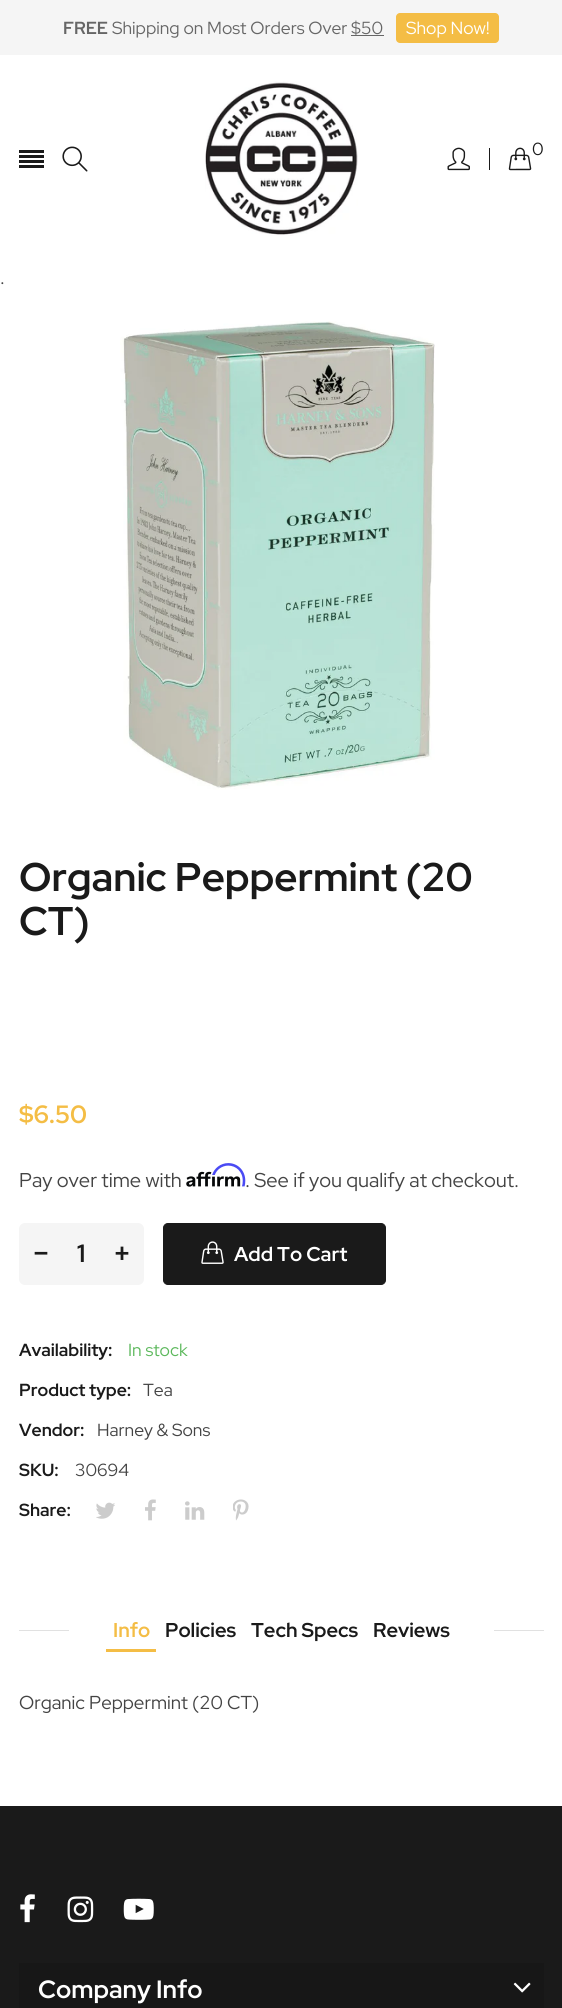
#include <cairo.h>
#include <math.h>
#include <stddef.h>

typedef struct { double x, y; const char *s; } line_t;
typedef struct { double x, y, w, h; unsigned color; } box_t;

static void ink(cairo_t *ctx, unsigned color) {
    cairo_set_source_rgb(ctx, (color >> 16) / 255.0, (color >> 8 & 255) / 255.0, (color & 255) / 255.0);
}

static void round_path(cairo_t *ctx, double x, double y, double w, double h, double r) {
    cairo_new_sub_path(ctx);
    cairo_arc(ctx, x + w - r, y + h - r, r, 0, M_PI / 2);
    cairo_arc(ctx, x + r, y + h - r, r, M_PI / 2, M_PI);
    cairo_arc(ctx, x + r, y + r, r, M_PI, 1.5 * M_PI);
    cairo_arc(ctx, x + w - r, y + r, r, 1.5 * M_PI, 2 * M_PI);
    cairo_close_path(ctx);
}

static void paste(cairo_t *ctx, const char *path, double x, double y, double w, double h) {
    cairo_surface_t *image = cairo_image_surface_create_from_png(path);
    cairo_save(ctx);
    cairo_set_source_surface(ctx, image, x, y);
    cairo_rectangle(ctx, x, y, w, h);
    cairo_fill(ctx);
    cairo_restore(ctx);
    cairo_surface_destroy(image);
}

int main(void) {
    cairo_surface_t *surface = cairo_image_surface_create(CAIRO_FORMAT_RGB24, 562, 2008);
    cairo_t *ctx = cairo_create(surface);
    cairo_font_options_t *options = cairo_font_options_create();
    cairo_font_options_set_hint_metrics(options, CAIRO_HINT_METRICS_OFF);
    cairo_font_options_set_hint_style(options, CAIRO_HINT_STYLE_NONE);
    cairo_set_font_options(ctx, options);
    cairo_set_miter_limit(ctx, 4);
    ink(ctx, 0xFFFFFF);
    cairo_paint(ctx);
    ink(ctx, 0xF5F5F5);
    cairo_rectangle(ctx, 0, 0, 562, 55);
    cairo_fill(ctx);
    cairo_select_font_face(ctx, "Red Hat Display", CAIRO_FONT_SLANT_NORMAL, CAIRO_FONT_WEIGHT_BOLD);
    cairo_set_font_size(ctx, 17.5);
    ink(ctx, 0x666666);
    cairo_move_to(ctx, 63, 34);
    cairo_show_text(ctx, "FREE");
    cairo_select_font_face(ctx, "Red Hat Display", CAIRO_FONT_SLANT_NORMAL, CAIRO_FONT_WEIGHT_NORMAL);
    cairo_move_to(ctx, 112, 34);
    cairo_show_text(ctx, "Shipping on Most Orders Over");
    cairo_rectangle(ctx, 351, 35, 33, 1);
    cairo_fill(ctx);
    cairo_move_to(ctx, 351, 34);
    cairo_show_text(ctx, "$50");
    ink(ctx, 0xF4BD45);
    round_path(ctx, 396, 13, 103, 30, 4);
    cairo_fill(ctx);
    ink(ctx, 0xFFFFFF);
    cairo_move_to(ctx, 406, 34);
    cairo_show_text(ctx, "Shop Now!");
    {
        static const box_t items[] = {
            {19, 150, 25, 3, 0x1A1A1A},
            {19, 155, 25, 3, 0x1A1A1A},
            {19, 160, 25, 3, 0x1A1A1A},
            {19, 165, 25, 3, 0x1A1A1A},
        };
        for (size_t i = 0; i < sizeof items / sizeof *items; i++) {
            ink(ctx, items[i].color);
            cairo_rectangle(ctx, items[i].x, items[i].y, items[i].w, items[i].h);
            cairo_fill(ctx);
        }
    }
    paste(ctx, "media/1.png", 62, 146, 26, 26);
    paste(ctx, "media/2.png", 205, 81, 153, 155);
    cairo_rectangle(ctx, 489, 148, 1, 22);
    cairo_fill(ctx);
    paste(ctx, "media/3.png", 447, 147, 23, 24);
    paste(ctx, "media/4.png", 508, 147, 24, 24);
    cairo_move_to(ctx, 532, 155);
    cairo_show_text(ctx, "0");
    cairo_set_font_size(ctx, 18.75);
    ink(ctx, 0x444444);
    cairo_move_to(ctx, 0, 284);
    cairo_show_text(ctx, ".");
    paste(ctx, "media/5.png", 120, 321, 315, 469);
    cairo_select_font_face(ctx, "Red Hat Display", CAIRO_FONT_SLANT_NORMAL, CAIRO_FONT_WEIGHT_BOLD);
    cairo_set_font_size(ctx, 40);
    ink(ctx, 0x1A1A1A);
    cairo_move_to(ctx, 19, 891);
    cairo_show_text(ctx, "Organic Peppermint (20");
    cairo_move_to(ctx, 19, 935);
    cairo_show_text(ctx, "CT)");
    cairo_set_font_size(ctx, 25);
    ink(ctx, 0xF4BD45);
    cairo_move_to(ctx, 19, 1123);
    cairo_show_text(ctx, "$6.50");
    cairo_select_font_face(ctx, "Red Hat Display", CAIRO_FONT_SLANT_NORMAL, CAIRO_FONT_WEIGHT_NORMAL);
    cairo_set_font_size(ctx, 20);
    ink(ctx, 0x444444);
    cairo_move_to(ctx, 19, 1187);
    cairo_show_text(ctx, "Pay over time with");
    paste(ctx, "media/7.png", 186, 1171, 55, 16);
    paste(ctx, "media/6.png", 212, 1163, 34, 24);
    cairo_move_to(ctx, 245, 1187);
    cairo_show_text(ctx, ". See if you qualify at checkout.");
    ink(ctx, 0xF5F5F5);
    round_path(ctx, 19, 1223, 125, 62, 6);
    cairo_fill(ctx);
    cairo_select_font_face(ctx, "Red Hat Display", CAIRO_FONT_SLANT_NORMAL, CAIRO_FONT_WEIGHT_BOLD);
    cairo_set_font_size(ctx, 30);
    ink(ctx, 0x1A1A1A);
    cairo_move_to(ctx, 32, 1264);
    cairo_show_text(ctx, "−");
    cairo_set_font_size(ctx, 25);
    cairo_move_to(ctx, 77, 1262);
    cairo_show_text(ctx, "1");
    cairo_set_font_size(ctx, 30);
    cairo_move_to(ctx, 113, 1264);
    cairo_show_text(ctx, "+");
    round_path(ctx, 163.5, 1223.5, 222, 61, 4.5);
    cairo_fill_preserve(ctx);
    cairo_set_line_width(ctx, 1);
    cairo_stroke(ctx);
    paste(ctx, "media/8.png", 201, 1241, 23, 23);
    cairo_set_font_size(ctx, 20);
    ink(ctx, 0xFFFFFF);
    cairo_move_to(ctx, 234, 1261);
    cairo_show_text(ctx, "Add To Cart");
    cairo_set_font_size(ctx, 17.5);
    ink(ctx, 0x1A1A1A);
    cairo_move_to(ctx, 19, 1356);
    cairo_show_text(ctx, "Availability:");
    cairo_select_font_face(ctx, "Red Hat Display", CAIRO_FONT_SLANT_NORMAL, CAIRO_FONT_WEIGHT_NORMAL);
    ink(ctx, 0x5CB85C);
    cairo_move_to(ctx, 128, 1356);
    cairo_show_text(ctx, "In stock");
    cairo_select_font_face(ctx, "Red Hat Display", CAIRO_FONT_SLANT_NORMAL, CAIRO_FONT_WEIGHT_BOLD);
    ink(ctx, 0x1A1A1A);
    cairo_move_to(ctx, 19, 1396);
    cairo_show_text(ctx, "Product type:");
    cairo_select_font_face(ctx, "Red Hat Display", CAIRO_FONT_SLANT_NORMAL, CAIRO_FONT_WEIGHT_NORMAL);
    ink(ctx, 0x444444);
    cairo_move_to(ctx, 143, 1396);
    cairo_show_text(ctx, "Tea");
    cairo_select_font_face(ctx, "Red Hat Display", CAIRO_FONT_SLANT_NORMAL, CAIRO_FONT_WEIGHT_BOLD);
    ink(ctx, 0x1A1A1A);
    cairo_move_to(ctx, 19, 1436);
    cairo_show_text(ctx, "Vendor:");
    cairo_select_font_face(ctx, "Red Hat Display", CAIRO_FONT_SLANT_NORMAL, CAIRO_FONT_WEIGHT_NORMAL);
    ink(ctx, 0x444444);
    cairo_move_to(ctx, 97, 1436);
    cairo_show_text(ctx, "Harney & Sons");
    cairo_select_font_face(ctx, "Red Hat Display", CAIRO_FONT_SLANT_NORMAL, CAIRO_FONT_WEIGHT_BOLD);
    ink(ctx, 0x1A1A1A);
    cairo_move_to(ctx, 19, 1476);
    cairo_show_text(ctx, "SKU:");
    cairo_select_font_face(ctx, "Red Hat Display", CAIRO_FONT_SLANT_NORMAL, CAIRO_FONT_WEIGHT_NORMAL);
    ink(ctx, 0x444444);
    cairo_move_to(ctx, 75, 1476);
    cairo_show_text(ctx, "30694");
    cairo_select_font_face(ctx, "Red Hat Display", CAIRO_FONT_SLANT_NORMAL, CAIRO_FONT_WEIGHT_BOLD);
    ink(ctx, 0x1A1A1A);
    cairo_move_to(ctx, 19, 1516);
    cairo_show_text(ctx, "Share:");
    paste(ctx, "media/9.png", 96, 1502, 19, 17);
    paste(ctx, "media/10.png", 145, 1499, 11, 22);
    paste(ctx, "media/11.png", 185, 1501, 20, 19);
    paste(ctx, "media/12.png", 233, 1499, 16, 22);
    ink(ctx, 0xE1E1E1);
    cairo_rectangle(ctx, 19, 1630, 525, 1);
    cairo_fill(ctx);
    ink(ctx, 0xFFFFFF);
    cairo_rectangle(ctx, 69, 1630, 425, 1);
    cairo_fill(ctx);
    cairo_set_font_size(ctx, 20);
    ink(ctx, 0xF4BD45);
    cairo_move_to(ctx, 113, 1637);
    cairo_show_text(ctx, "Info");
    cairo_rectangle(ctx, 106, 1649, 50, 3);
    cairo_fill(ctx);
    ink(ctx, 0x1A1A1A);
    {
        static const line_t items[] = {
            {165, 1637, "Policies"},
            {251, 1637, "Tech Specs"},
            {373, 1637, "Reviews"},
        };
        for (size_t i = 0; i < sizeof items / sizeof *items; i++) {
            cairo_move_to(ctx, items[i].x, items[i].y);
            cairo_show_text(ctx, items[i].s);
        }
    }
    cairo_select_font_face(ctx, "Red Hat Display", CAIRO_FONT_SLANT_NORMAL, CAIRO_FONT_WEIGHT_NORMAL);
    cairo_set_font_size(ctx, 18.75);
    ink(ctx, 0x444444);
    cairo_move_to(ctx, 19, 1709);
    cairo_show_text(ctx, "Organic Peppermint (20 CT)");
    ink(ctx, 0x1A1A1A);
    cairo_rectangle(ctx, 0, 1806, 562, 202);
    cairo_fill(ctx);
    paste(ctx, "media/13.png", 20, 1894, 15, 29);
    paste(ctx, "media/14.png", 67, 1896, 27, 27);
    paste(ctx, "media/15.png", 123, 1898, 31, 22);
    ink(ctx, 0x171717);
    cairo_rectangle(ctx, 19, 1963, 525, 45);
    cairo_fill(ctx);
    cairo_select_font_face(ctx, "Red Hat Display", CAIRO_FONT_SLANT_NORMAL, CAIRO_FONT_WEIGHT_BOLD);
    cairo_set_font_size(ctx, 25);
    ink(ctx, 0xFFFFFF);
    cairo_move_to(ctx, 38, 1998);
    cairo_show_text(ctx, "Company Info");
    paste(ctx, "media/16.png", 513, 1982, 18, 11);
    cairo_surface_write_to_png(surface, "image.png");
    cairo_font_options_destroy(options);
    cairo_destroy(ctx);
    cairo_surface_destroy(surface);
    return 0;
}
